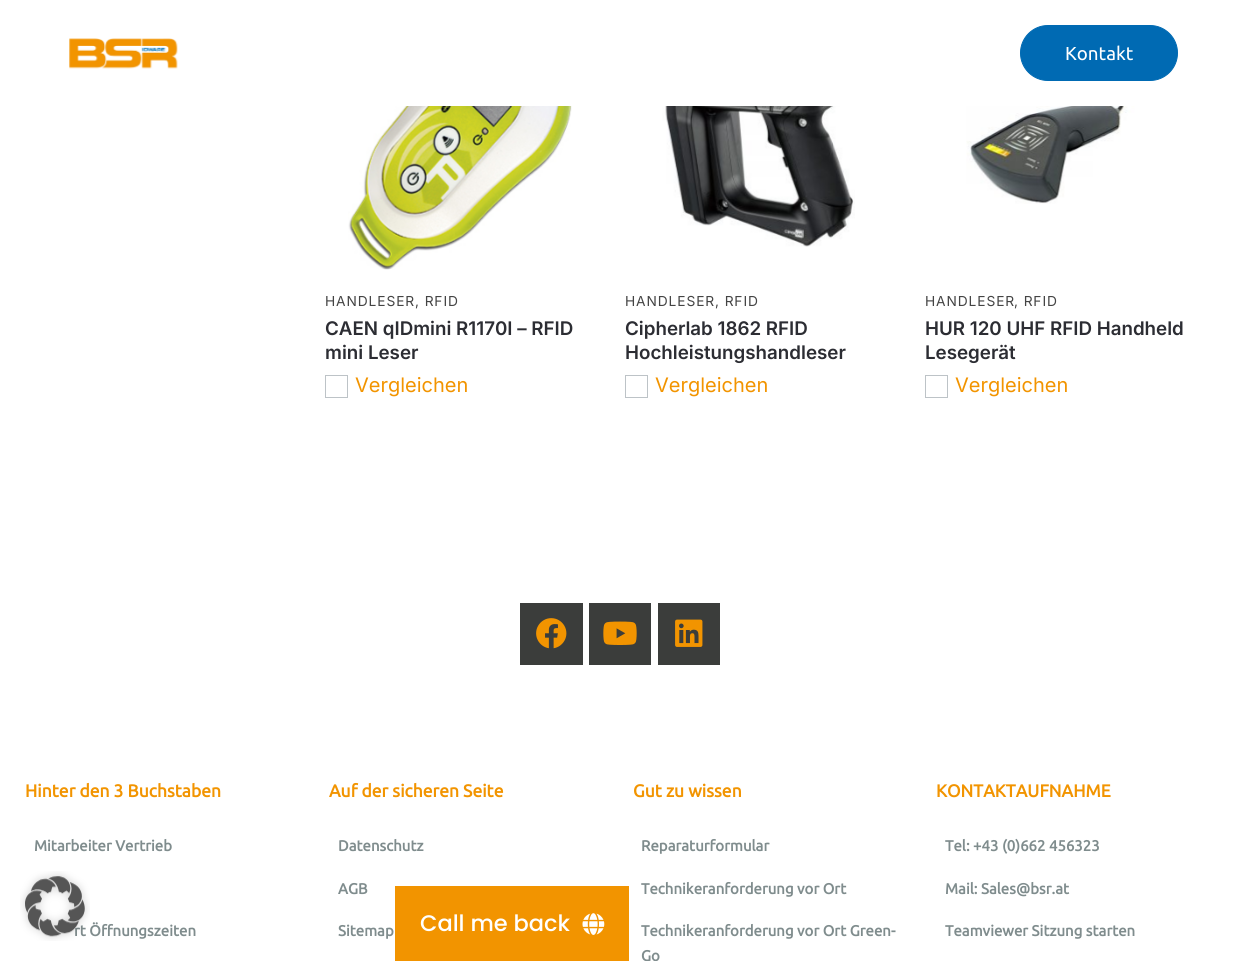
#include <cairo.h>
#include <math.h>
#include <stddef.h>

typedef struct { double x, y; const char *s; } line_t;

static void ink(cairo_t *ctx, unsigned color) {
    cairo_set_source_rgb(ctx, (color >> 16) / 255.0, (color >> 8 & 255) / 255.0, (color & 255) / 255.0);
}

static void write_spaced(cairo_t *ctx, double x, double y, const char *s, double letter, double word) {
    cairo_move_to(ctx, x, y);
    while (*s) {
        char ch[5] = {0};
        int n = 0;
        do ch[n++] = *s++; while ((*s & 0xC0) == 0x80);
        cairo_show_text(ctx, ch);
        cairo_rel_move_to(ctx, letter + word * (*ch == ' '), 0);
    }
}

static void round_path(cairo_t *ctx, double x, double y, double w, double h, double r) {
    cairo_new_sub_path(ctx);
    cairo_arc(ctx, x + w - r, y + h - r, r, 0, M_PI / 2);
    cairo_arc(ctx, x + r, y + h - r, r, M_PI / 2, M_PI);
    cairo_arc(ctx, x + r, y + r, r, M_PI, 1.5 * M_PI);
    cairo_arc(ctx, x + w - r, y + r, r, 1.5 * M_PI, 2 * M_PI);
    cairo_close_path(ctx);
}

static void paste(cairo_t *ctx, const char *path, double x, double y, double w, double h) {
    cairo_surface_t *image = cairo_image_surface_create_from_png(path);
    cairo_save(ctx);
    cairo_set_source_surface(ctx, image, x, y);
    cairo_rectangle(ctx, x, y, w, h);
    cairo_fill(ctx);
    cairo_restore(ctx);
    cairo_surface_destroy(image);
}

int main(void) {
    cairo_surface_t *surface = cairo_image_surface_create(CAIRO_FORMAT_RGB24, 1258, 961);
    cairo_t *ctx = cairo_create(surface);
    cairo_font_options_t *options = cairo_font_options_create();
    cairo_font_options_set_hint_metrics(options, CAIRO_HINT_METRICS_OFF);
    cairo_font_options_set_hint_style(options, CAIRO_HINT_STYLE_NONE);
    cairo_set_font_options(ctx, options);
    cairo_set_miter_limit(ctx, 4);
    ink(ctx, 0xFFFFFF);
    cairo_paint(ctx);
    paste(ctx, "media/1.png", 69, 38, 109, 31);
    ink(ctx, 0x006AB3);
    round_path(ctx, 1020.5, 25.5, 157, 55, 27.5);
    cairo_fill_preserve(ctx);
    cairo_set_line_width(ctx, 1);
    cairo_stroke(ctx);
    cairo_select_font_face(ctx, "Ubuntu", CAIRO_FONT_SLANT_NORMAL, CAIRO_FONT_WEIGHT_NORMAL);
    cairo_set_font_size(ctx, 18.75);
    ink(ctx, 0xFFFFFF);
    cairo_move_to(ctx, 1065, 60);
    cairo_show_text(ctx, "Kontakt");
    paste(ctx, "media/2.png", 348, 106, 224, 164);
    cairo_select_font_face(ctx, "Inter", CAIRO_FONT_SLANT_NORMAL, CAIRO_FONT_WEIGHT_NORMAL);
    cairo_set_font_size(ctx, 13.75);
    ink(ctx, 0x444444);
    write_spaced(ctx, 325, 306, "HANDLESER", 0.9, 0);
    write_spaced(ctx, 415, 306, ", RFID", 0.9, 0);
    cairo_select_font_face(ctx, "Inter SemiBold", CAIRO_FONT_SLANT_NORMAL, CAIRO_FONT_WEIGHT_NORMAL);
    cairo_set_font_size(ctx, 18.75);
    ink(ctx, 0x2C2D33);
    cairo_move_to(ctx, 325, 335);
    cairo_show_text(ctx, "CAEN qIDmini R1170I – RFID");
    cairo_move_to(ctx, 325, 359);
    cairo_show_text(ctx, "mini Leser");
    cairo_rectangle(ctx, 325.5, 375.5, 22, 22);
    ink(ctx, 0xBDC3C7);
    cairo_stroke(ctx);
    cairo_select_font_face(ctx, "Inter", CAIRO_FONT_SLANT_NORMAL, CAIRO_FONT_WEIGHT_NORMAL);
    cairo_set_font_size(ctx, 20);
    ink(ctx, 0xF29400);
    cairo_move_to(ctx, 355, 392);
    cairo_show_text(ctx, "Vergleichen");
    paste(ctx, "media/3.png", 662, 106, 193, 141);
    cairo_set_font_size(ctx, 13.75);
    ink(ctx, 0x444444);
    write_spaced(ctx, 625, 306, "HANDLESER", 0.9, 0);
    write_spaced(ctx, 715, 306, ", RFID", 0.9, 0);
    cairo_select_font_face(ctx, "Inter SemiBold", CAIRO_FONT_SLANT_NORMAL, CAIRO_FONT_WEIGHT_NORMAL);
    cairo_set_font_size(ctx, 18.75);
    ink(ctx, 0x2C2D33);
    cairo_move_to(ctx, 625, 335);
    cairo_show_text(ctx, "Cipherlab 1862 RFID");
    cairo_move_to(ctx, 625, 359);
    cairo_show_text(ctx, "Hochleistungshandleser");
    cairo_rectangle(ctx, 625.5, 375.5, 22, 22);
    ink(ctx, 0xBDC3C7);
    cairo_stroke(ctx);
    cairo_select_font_face(ctx, "Inter", CAIRO_FONT_SLANT_NORMAL, CAIRO_FONT_WEIGHT_NORMAL);
    cairo_set_font_size(ctx, 20);
    ink(ctx, 0xF29400);
    cairo_move_to(ctx, 655, 392);
    cairo_show_text(ctx, "Vergleichen");
    paste(ctx, "media/4.png", 966, 106, 169, 98);
    cairo_set_font_size(ctx, 13.75);
    ink(ctx, 0x444444);
    write_spaced(ctx, 925, 306, "HANDLESER", 0.9, 0);
    write_spaced(ctx, 1014, 306, ", RFID", 0.9, 0);
    cairo_select_font_face(ctx, "Inter SemiBold", CAIRO_FONT_SLANT_NORMAL, CAIRO_FONT_WEIGHT_NORMAL);
    cairo_set_font_size(ctx, 18.75);
    ink(ctx, 0x2C2D33);
    cairo_move_to(ctx, 925, 335);
    cairo_show_text(ctx, "HUR 120 UHF RFID Handheld");
    cairo_move_to(ctx, 925, 359);
    cairo_show_text(ctx, "Lesegerät");
    cairo_rectangle(ctx, 925.5, 375.5, 22, 22);
    ink(ctx, 0xBDC3C7);
    cairo_stroke(ctx);
    cairo_select_font_face(ctx, "Inter", CAIRO_FONT_SLANT_NORMAL, CAIRO_FONT_WEIGHT_NORMAL);
    cairo_set_font_size(ctx, 20);
    ink(ctx, 0xF29400);
    cairo_move_to(ctx, 955, 392);
    cairo_show_text(ctx, "Vergleichen");
    ink(ctx, 0x3B3D3B);
    cairo_rectangle(ctx, 520, 603, 63, 62);
    cairo_fill(ctx);
    paste(ctx, "media/5.png", 536, 618, 31, 31);
    cairo_rectangle(ctx, 589, 603, 62, 62);
    cairo_fill(ctx);
    paste(ctx, "media/6.png", 603, 621, 34, 24);
    cairo_rectangle(ctx, 658, 603, 62, 62);
    cairo_fill(ctx);
    paste(ctx, "media/7.png", 675, 619, 28, 28);
    cairo_select_font_face(ctx, "Ubuntu", CAIRO_FONT_SLANT_NORMAL, CAIRO_FONT_WEIGHT_BOLD);
    cairo_set_font_size(ctx, 17.5);
    ink(ctx, 0xF29400);
    cairo_move_to(ctx, 25, 797);
    cairo_show_text(ctx, "Hinter den 3 Buchstaben");
    cairo_set_font_size(ctx, 15);
    ink(ctx, 0x7F8C8D);
    cairo_move_to(ctx, 34, 851);
    cairo_show_text(ctx, "Mitarbeiter Vertrieb");
    cairo_move_to(ctx, 74, 936);
    cairo_show_text(ctx, "rt Öffnungszeiten");
    cairo_set_font_size(ctx, 17.5);
    ink(ctx, 0xF29400);
    cairo_move_to(ctx, 329, 797);
    cairo_show_text(ctx, "Auf der sicheren Seite");
    cairo_set_font_size(ctx, 15);
    ink(ctx, 0x7F8C8D);
    {
        static const line_t items[] = {
            {338, 851, "Datenschutz"},
            {338, 894, "AGB"},
            {338, 936, "Sitemap"},
        };
        for (size_t i = 0; i < sizeof items / sizeof *items; i++) {
            cairo_move_to(ctx, items[i].x, items[i].y);
            cairo_show_text(ctx, items[i].s);
        }
    }
    cairo_set_font_size(ctx, 17.5);
    ink(ctx, 0xF29400);
    cairo_move_to(ctx, 633, 797);
    cairo_show_text(ctx, "Gut zu wissen");
    cairo_set_font_size(ctx, 15);
    ink(ctx, 0x7F8C8D);
    {
        static const line_t items[] = {
            {641, 851, "Reparaturformular"},
            {641, 894, "Technikeranforderung vor Ort"},
            {641, 936, "Technikeranforderung vor Ort Green-"},
            {641, 961, "Go"},
        };
        for (size_t i = 0; i < sizeof items / sizeof *items; i++) {
            cairo_move_to(ctx, items[i].x, items[i].y);
            cairo_show_text(ctx, items[i].s);
        }
    }
    cairo_set_font_size(ctx, 17.5);
    ink(ctx, 0xF29400);
    cairo_move_to(ctx, 936, 797);
    cairo_show_text(ctx, "KONTAKTAUFNAHME");
    cairo_set_font_size(ctx, 15);
    ink(ctx, 0x7F8C8D);
    {
        static const line_t items[] = {
            {945, 851, "Tel: +43 (0)662 456323"},
            {945, 894, "Mail: Sales@bsr.at"},
            {945, 936, "Teamviewer Sitzung starten"},
        };
        for (size_t i = 0; i < sizeof items / sizeof *items; i++) {
            cairo_move_to(ctx, items[i].x, items[i].y);
            cairo_show_text(ctx, items[i].s);
        }
    }
    paste(ctx, "media/8.png", 20, 871, 70, 70);
    ink(ctx, 0xF29400);
    cairo_rectangle(ctx, 395, 886, 234, 75);
    cairo_fill(ctx);
    cairo_select_font_face(ctx, "Poppins Medium", CAIRO_FONT_SLANT_NORMAL, CAIRO_FONT_WEIGHT_NORMAL);
    cairo_set_font_size(ctx, 22.5);
    ink(ctx, 0xFFFFFF);
    cairo_move_to(ctx, 420, 931);
    cairo_show_text(ctx, "Call me back");
    paste(ctx, "media/9.png", 582, 913, 23, 22);
    cairo_surface_write_to_png(surface, "image.png");
    cairo_font_options_destroy(options);
    cairo_destroy(ctx);
    cairo_surface_destroy(surface);
    return 0;
}
